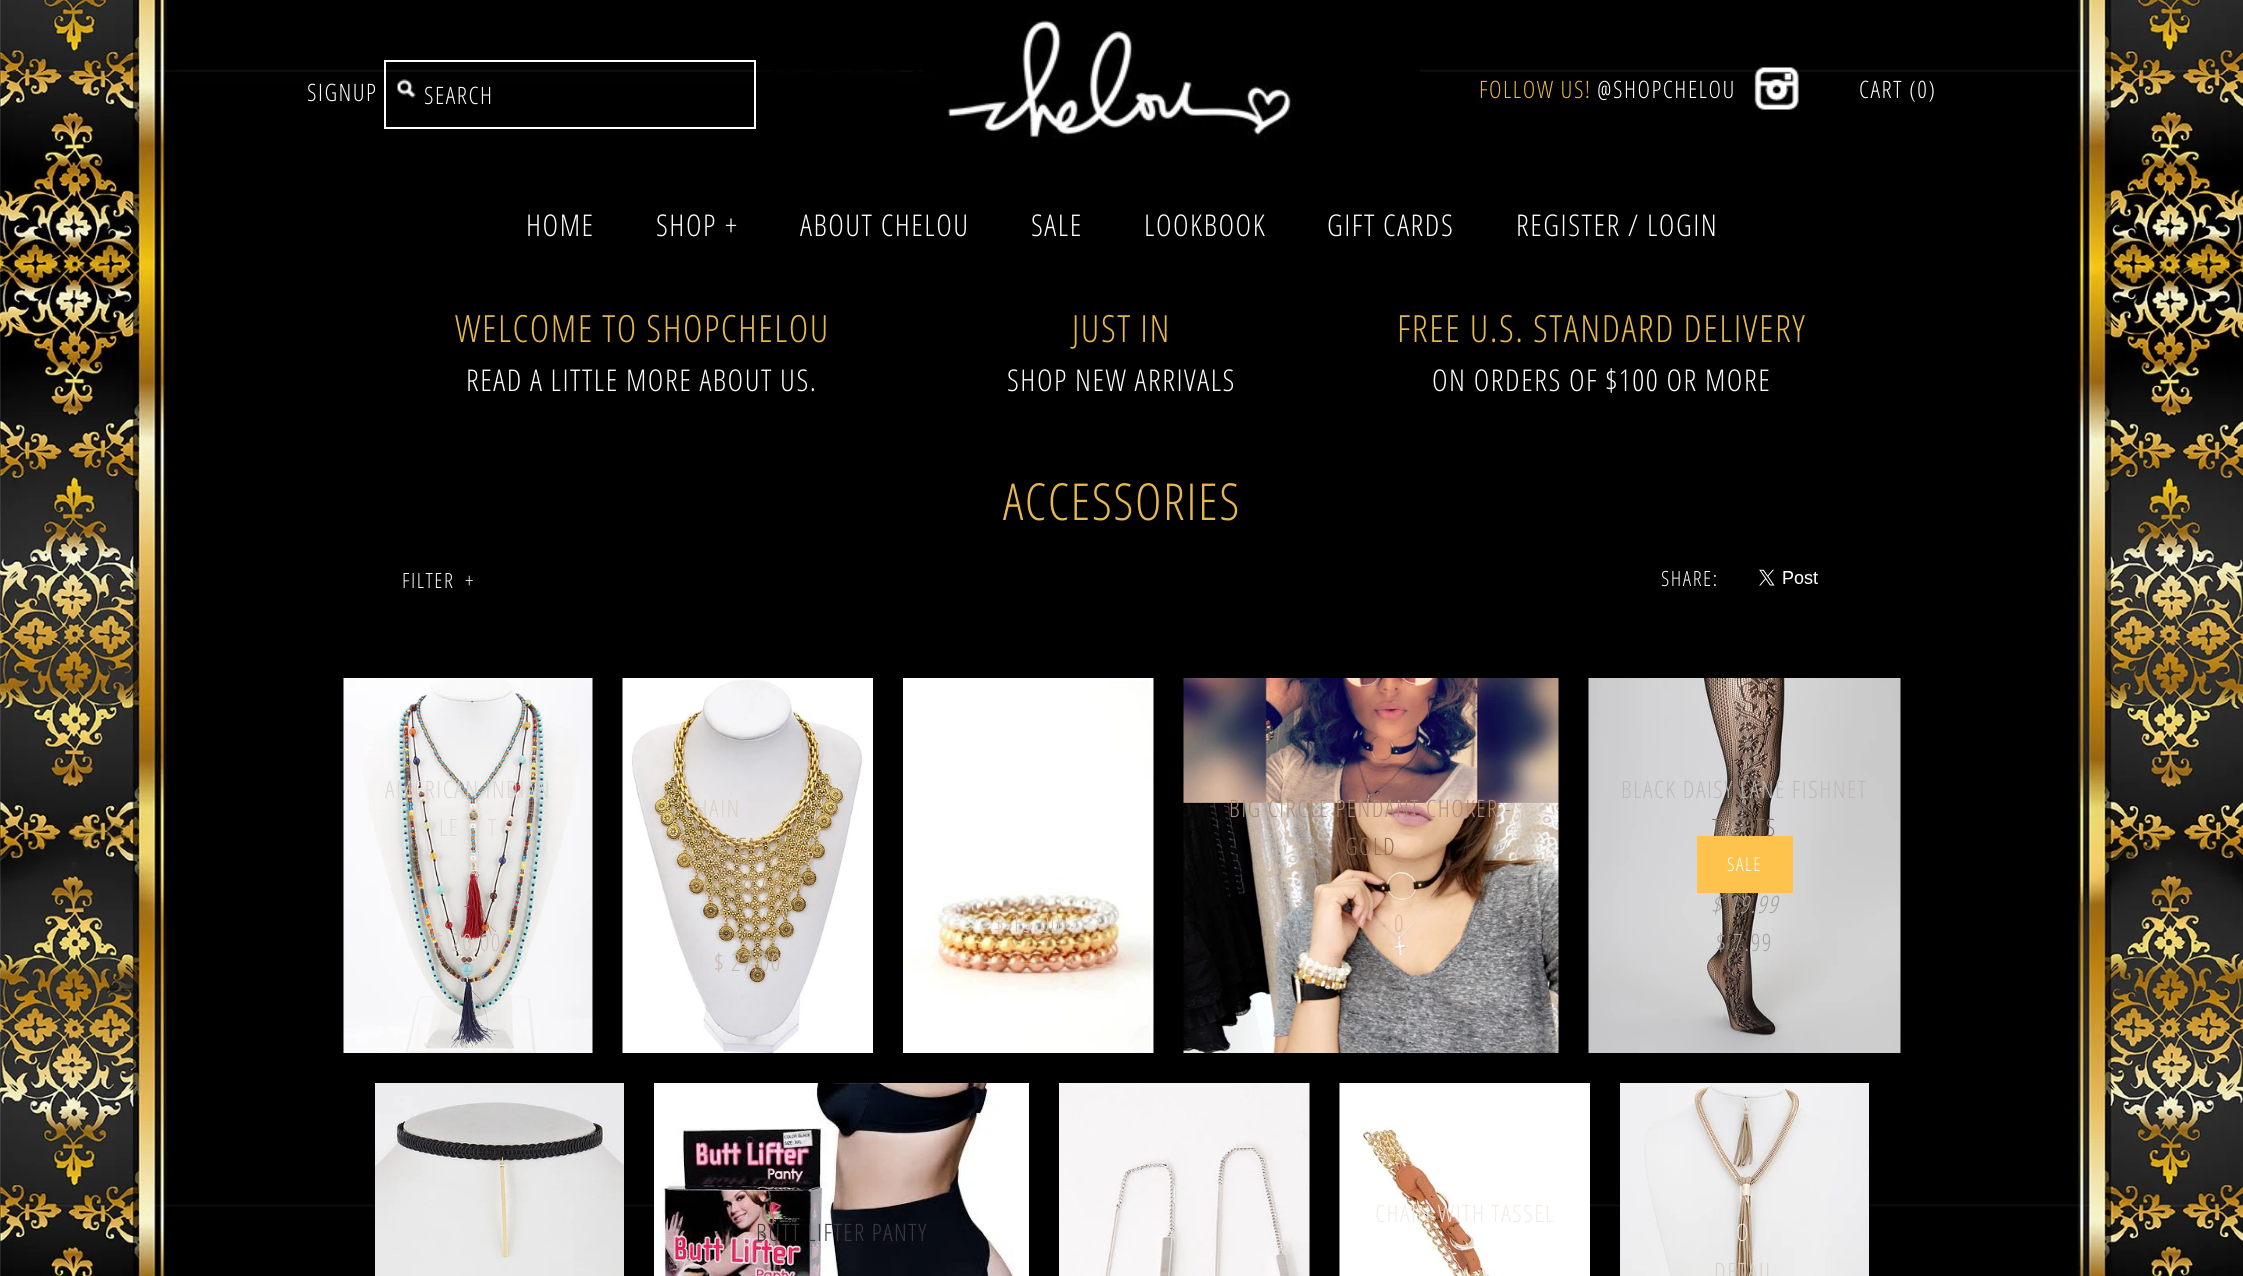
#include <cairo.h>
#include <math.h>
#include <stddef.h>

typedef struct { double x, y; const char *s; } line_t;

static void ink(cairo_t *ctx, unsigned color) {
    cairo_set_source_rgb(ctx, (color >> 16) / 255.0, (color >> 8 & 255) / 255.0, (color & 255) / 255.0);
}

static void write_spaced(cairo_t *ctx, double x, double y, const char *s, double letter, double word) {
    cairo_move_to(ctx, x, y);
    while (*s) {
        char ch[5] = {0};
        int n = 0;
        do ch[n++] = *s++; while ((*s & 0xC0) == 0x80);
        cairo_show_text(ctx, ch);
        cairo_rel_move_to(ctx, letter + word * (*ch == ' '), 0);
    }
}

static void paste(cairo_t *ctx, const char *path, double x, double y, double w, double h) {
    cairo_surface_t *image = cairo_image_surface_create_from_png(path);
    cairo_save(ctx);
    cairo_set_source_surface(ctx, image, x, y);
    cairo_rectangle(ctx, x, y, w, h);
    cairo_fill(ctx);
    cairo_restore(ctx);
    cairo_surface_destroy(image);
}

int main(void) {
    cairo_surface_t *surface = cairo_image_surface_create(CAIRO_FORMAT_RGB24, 2243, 1276);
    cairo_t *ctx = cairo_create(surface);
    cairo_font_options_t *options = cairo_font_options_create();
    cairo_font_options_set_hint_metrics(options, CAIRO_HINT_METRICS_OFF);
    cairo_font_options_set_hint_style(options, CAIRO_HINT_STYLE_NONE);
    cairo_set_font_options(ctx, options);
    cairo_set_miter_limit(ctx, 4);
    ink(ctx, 0xFFFFFF);
    cairo_paint(ctx);
    paste(ctx, "media/1.png", 0, 0, 2243, 1276);
    paste(ctx, "media/2.png", 945, 20, 346, 119);
    cairo_select_font_face(ctx, "Open Sans Condensed Light", CAIRO_FONT_SLANT_NORMAL, CAIRO_FONT_WEIGHT_NORMAL);
    cairo_set_font_size(ctx, 24);
    ink(ctx, 0xFFFFFF);
    write_spaced(ctx, 307, 101, "SIGNUP", 1.5, 0);
    cairo_rectangle(ctx, 385, 61, 370, 67);
    cairo_stroke(ctx);
    paste(ctx, "media/3.png", 397, 79, 19, 19);
    write_spaced(ctx, 424, 104, "SEARCH", 1.5, 0);
    ink(ctx, 0xE5B84C);
    write_spaced(ctx, 1479, 98, "FOLLOW US!", 1.5, 0);
    ink(ctx, 0xFFFFFF);
    write_spaced(ctx, 1597, 98, "@SHOPCHELOU", 1.5, 0);
    paste(ctx, "media/4.png", 1754, 67, 45, 43);
    write_spaced(ctx, 1859, 98, "CART (0)", 1.5, 0);
    cairo_set_font_size(ctx, 30);
    {
        static const line_t items[] = {
            {526, 236, "HOME"},
            {656, 236, "SHOP"},
            {725, 236, "+"},
            {800, 236, "ABOUT CHELOU"},
            {1031, 236, "SALE"},
            {1144, 236, "LOOKBOOK"},
            {1327, 236, "GIFT CARDS"},
            {1516, 236, "REGISTER / LOGIN"},
        };
        for (size_t i = 0; i < sizeof items / sizeof *items; i++) {
            write_spaced(ctx, items[i].x, items[i].y, items[i].s, 1.5, 0);
        }
    }
    cairo_set_font_size(ctx, 37.5);
    ink(ctx, 0xE5B84C);
    write_spaced(ctx, 455, 342, "WELCOME TO SHOPCHELOU", 1.5, 0);
    cairo_set_font_size(ctx, 30);
    ink(ctx, 0xFFFFFF);
    write_spaced(ctx, 466, 391, "READ A LITTLE MORE ABOUT US.", 1.5, 0);
    cairo_set_font_size(ctx, 37.5);
    ink(ctx, 0xE5B84C);
    write_spaced(ctx, 1072, 342, "JUST IN", 1.5, 0);
    cairo_set_font_size(ctx, 30);
    ink(ctx, 0xFFFFFF);
    write_spaced(ctx, 1007, 391, "SHOP NEW ARRIVALS", 1.5, 0);
    cairo_set_font_size(ctx, 37.5);
    ink(ctx, 0xE5B84C);
    write_spaced(ctx, 1397, 342, "FREE U.S. STANDARD DELIVERY", 1.5, 0);
    cairo_set_font_size(ctx, 30);
    ink(ctx, 0xFFFFFF);
    write_spaced(ctx, 1432, 391, "ON ORDERS OF $100 OR MORE", 1.5, 0);
    cairo_set_font_size(ctx, 51);
    ink(ctx, 0xE5B84C);
    write_spaced(ctx, 1003, 520, "ACCESSORIES", 1.5, 0);
    cairo_set_font_size(ctx, 21);
    ink(ctx, 0xFFFFFF);
    {
        static const line_t items[] = {
            {402, 588, "FILTER"},
            {465, 588, "+"},
            {1661, 586, "SHARE:"},
        };
        for (size_t i = 0; i < sizeof items / sizeof *items; i++) {
            write_spaced(ctx, items[i].x, items[i].y, items[i].s, 1.5, 0);
        }
    }
    paste(ctx, "media/5.png", 1759, 569, 59, 17);
    paste(ctx, "media/6.png", 343, 678, 250, 375);
    cairo_set_font_size(ctx, 24);
    ink(ctx, 0xD8D5D3);
    write_spaced(ctx, 385, 798, "AMERICAN INDIAN", 1.5, 0);
    ink(ctx, 0xE0D9D3);
    write_spaced(ctx, 439, 836, "LE", 1.5, 0);
    write_spaced(ctx, 488, 836, "T", 1.5, 0);
    ink(ctx, 0xA95F66);
    write_spaced(ctx, 464, 913, "-", 1.5, 0);
    ink(ctx, 0xCEC0BB);
    write_spaced(ctx, 434, 951, "$ 20.00", 1.5, 0);
    paste(ctx, "media/7.png", 622, 678, 251, 375);
    ink(ctx, 0xD8D0C4);
    write_spaced(ctx, 684, 817, "CHAIN", 1.5, 0);
    ink(ctx, 0xB79E72);
    write_spaced(ctx, 696, 855, "STATEMENT", 1.5, 0);
    ink(ctx, 0xBBA37A);
    write_spaced(ctx, 703, 894, "NECKLACE", 1.5, 0);
    ink(ctx, 0xC3B8AA);
    write_spaced(ctx, 714, 971, "$ 27.00", 1.5, 0);
    paste(ctx, "media/8.png", 903, 678, 251, 375);
    ink(ctx, 0xDAC6A7);
    write_spaced(ctx, 994, 932, "$ 15.00", 1.5, 0);
    paste(ctx, "media/9.png", 1183, 678, 376, 375);
    ink(ctx, 0xAB8D7E);
    write_spaced(ctx, 1229, 817, "BIG CIRCLE PENDANT CHOKER -", 1.5, 0);
    ink(ctx, 0x946E54);
    write_spaced(ctx, 1345, 855, "GOLD", 1.5, 0);
    ink(ctx, 0x371F15);
    write_spaced(ctx, 1367, 894, "-", 1.5, 0);
    ink(ctx, 0xDCB49A);
    write_spaced(ctx, 1394, 932, "0", 1.5, 0);
    paste(ctx, "media/10.png", 1588, 678, 313, 375);
    ink(ctx, 0xBDB9B8);
    write_spaced(ctx, 1621, 798, "BLACK DAISY LANE FISHNET", 1.5, 0);
    ink(ctx, 0xFEC34D);
    cairo_rectangle(ctx, 1697, 836, 96, 57);
    cairo_fill(ctx);
    ink(ctx, 0x877668);
    write_spaced(ctx, 1712, 836, "TIGHTS", 1.5, 0);
    cairo_select_font_face(ctx, "Open Sans Condensed Light", CAIRO_FONT_SLANT_ITALIC, CAIRO_FONT_WEIGHT_NORMAL);
    ink(ctx, 0xA4A09E);
    write_spaced(ctx, 1711, 913, "$ 19.99", 1.5, 0);
    cairo_select_font_face(ctx, "Open Sans Condensed Light", CAIRO_FONT_SLANT_NORMAL, CAIRO_FONT_WEIGHT_NORMAL);
    write_spaced(ctx, 1716, 951, "$ 7.99", 1.5, 0);
    cairo_set_font_size(ctx, 19);
    ink(ctx, 0xFFFFFF);
    write_spaced(ctx, 1727, 871, "SALE", 1.5, 0);
    paste(ctx, "media/11.png", 375, 1083, 249, 193);
    paste(ctx, "media/12.png", 654, 1083, 375, 193);
    cairo_set_font_size(ctx, 24);
    ink(ctx, 0x3D393D);
    write_spaced(ctx, 756, 1241, "BUTT LIFTER PANTY", 1.5, 0);
    paste(ctx, "media/13.png", 1059, 1083, 251, 193);
    ink(ctx, 0xF4F1F1);
    write_spaced(ctx, 1172, 1203, "I", 1.5, 0);
    paste(ctx, "media/14.png", 1339, 1083, 251, 193);
    ink(ctx, 0xF3EAE3);
    write_spaced(ctx, 1375, 1222, "CHAIN WITH TASSEL", 1.5, 0);
    ink(ctx, 0xF6EFEA);
    write_spaced(ctx, 1451, 1260, "-", 1.5, 0);
    paste(ctx, "media/15.png", 1620, 1083, 249, 193);
    ink(ctx, 0xEBE9E7);
    write_spaced(ctx, 1738, 1203, "N", 1.5, 0);
    write_spaced(ctx, 1736, 1241, "O", 1.5, 0);
    ink(ctx, 0xD8D0C4);
    write_spaced(ctx, 1714, 1280, "DETAIL", 1.5, 0);
    cairo_surface_write_to_png(surface, "image.png");
    cairo_font_options_destroy(options);
    cairo_destroy(ctx);
    cairo_surface_destroy(surface);
    return 0;
}
